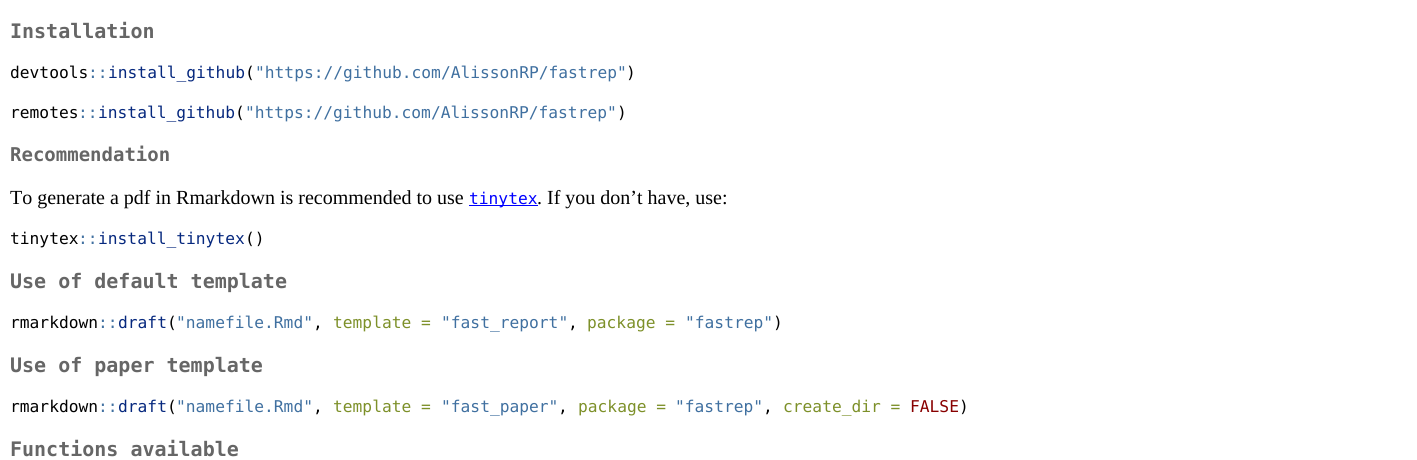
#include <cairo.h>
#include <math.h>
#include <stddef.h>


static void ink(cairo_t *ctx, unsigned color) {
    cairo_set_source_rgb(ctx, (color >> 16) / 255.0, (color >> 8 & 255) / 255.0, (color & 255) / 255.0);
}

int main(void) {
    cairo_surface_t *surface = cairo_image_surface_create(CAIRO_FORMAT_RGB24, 1417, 460);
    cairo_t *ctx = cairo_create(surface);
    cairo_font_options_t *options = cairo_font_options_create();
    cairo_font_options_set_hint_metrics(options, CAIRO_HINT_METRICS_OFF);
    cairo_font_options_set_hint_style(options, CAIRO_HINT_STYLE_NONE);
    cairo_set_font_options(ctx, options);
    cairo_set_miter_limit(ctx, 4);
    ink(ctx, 0xFFFFFF);
    cairo_paint(ctx);
    cairo_select_font_face(ctx, "DejaVu Sans Mono", CAIRO_FONT_SLANT_NORMAL, CAIRO_FONT_WEIGHT_BOLD);
    cairo_set_font_size(ctx, 20);
    ink(ctx, 0x666666);
    cairo_move_to(ctx, 10, 38);
    cairo_show_text(ctx, "Installation");
    cairo_select_font_face(ctx, "DejaVu Sans Mono", CAIRO_FONT_SLANT_NORMAL, CAIRO_FONT_WEIGHT_NORMAL);
    cairo_set_font_size(ctx, 16.25);
    ink(ctx, 0x000000);
    cairo_move_to(ctx, 10, 78);
    cairo_show_text(ctx, "devtools");
    ink(ctx, 0x4070A0);
    cairo_move_to(ctx, 88, 78);
    cairo_show_text(ctx, "::");
    ink(ctx, 0x06287E);
    cairo_move_to(ctx, 108, 78);
    cairo_show_text(ctx, "install_github");
    ink(ctx, 0x000000);
    cairo_move_to(ctx, 245, 78);
    cairo_show_text(ctx, "(");
    ink(ctx, 0x4070A0);
    cairo_move_to(ctx, 255, 78);
    cairo_show_text(ctx, "\"https://github.com/AlissonRP/fastrep\"");
    ink(ctx, 0x000000);
    cairo_move_to(ctx, 626, 78);
    cairo_show_text(ctx, ")");
    cairo_move_to(ctx, 10, 118);
    cairo_show_text(ctx, "remotes");
    ink(ctx, 0x4070A0);
    cairo_move_to(ctx, 78, 118);
    cairo_show_text(ctx, "::");
    ink(ctx, 0x06287E);
    cairo_move_to(ctx, 98, 118);
    cairo_show_text(ctx, "install_github");
    ink(ctx, 0x000000);
    cairo_move_to(ctx, 235, 118);
    cairo_show_text(ctx, "(");
    ink(ctx, 0x4070A0);
    cairo_move_to(ctx, 245, 118);
    cairo_show_text(ctx, "\"https://github.com/AlissonRP/fastrep\"");
    ink(ctx, 0x000000);
    cairo_move_to(ctx, 617, 118);
    cairo_show_text(ctx, ")");
    cairo_select_font_face(ctx, "DejaVu Sans Mono", CAIRO_FONT_SLANT_NORMAL, CAIRO_FONT_WEIGHT_BOLD);
    cairo_set_font_size(ctx, 19);
    ink(ctx, 0x666666);
    cairo_move_to(ctx, 10, 161);
    cairo_show_text(ctx, "Recommendation");
    cairo_select_font_face(ctx, "Liberation Serif", CAIRO_FONT_SLANT_NORMAL, CAIRO_FONT_WEIGHT_NORMAL);
    cairo_set_font_size(ctx, 20);
    ink(ctx, 0x000000);
    cairo_move_to(ctx, 10, 204);
    cairo_show_text(ctx, "To generate a pdf in Rmarkdown is recommended to use");
    ink(ctx, 0x0000FF);
    cairo_rectangle(ctx, 469, 205, 69, 1);
    cairo_fill(ctx);
    cairo_select_font_face(ctx, "DejaVu Sans Mono", CAIRO_FONT_SLANT_NORMAL, CAIRO_FONT_WEIGHT_NORMAL);
    cairo_set_font_size(ctx, 16.25);
    cairo_move_to(ctx, 469, 204);
    cairo_show_text(ctx, "tinytex");
    cairo_select_font_face(ctx, "Liberation Serif", CAIRO_FONT_SLANT_NORMAL, CAIRO_FONT_WEIGHT_NORMAL);
    cairo_set_font_size(ctx, 20);
    ink(ctx, 0x000000);
    cairo_move_to(ctx, 537, 204);
    cairo_show_text(ctx, ". If you don’t have, use:");
    cairo_select_font_face(ctx, "DejaVu Sans Mono", CAIRO_FONT_SLANT_NORMAL, CAIRO_FONT_WEIGHT_NORMAL);
    cairo_set_font_size(ctx, 16.25);
    cairo_move_to(ctx, 10, 244);
    cairo_show_text(ctx, "tinytex");
    ink(ctx, 0x4070A0);
    cairo_move_to(ctx, 78, 244);
    cairo_show_text(ctx, "::");
    ink(ctx, 0x06287E);
    cairo_move_to(ctx, 98, 244);
    cairo_show_text(ctx, "install_tinytex");
    ink(ctx, 0x000000);
    cairo_move_to(ctx, 245, 244);
    cairo_show_text(ctx, "()");
    cairo_select_font_face(ctx, "DejaVu Sans Mono", CAIRO_FONT_SLANT_NORMAL, CAIRO_FONT_WEIGHT_BOLD);
    cairo_set_font_size(ctx, 20);
    ink(ctx, 0x666666);
    cairo_move_to(ctx, 10, 288);
    cairo_show_text(ctx, "Use of default template");
    cairo_select_font_face(ctx, "DejaVu Sans Mono", CAIRO_FONT_SLANT_NORMAL, CAIRO_FONT_WEIGHT_NORMAL);
    cairo_set_font_size(ctx, 16.25);
    ink(ctx, 0x000000);
    cairo_move_to(ctx, 10, 328);
    cairo_show_text(ctx, "rmarkdown");
    ink(ctx, 0x4070A0);
    cairo_move_to(ctx, 98, 328);
    cairo_show_text(ctx, "::");
    ink(ctx, 0x06287E);
    cairo_move_to(ctx, 118, 328);
    cairo_show_text(ctx, "draft");
    ink(ctx, 0x000000);
    cairo_move_to(ctx, 167, 328);
    cairo_show_text(ctx, "(");
    ink(ctx, 0x4070A0);
    cairo_move_to(ctx, 176, 328);
    cairo_show_text(ctx, "\"namefile.Rmd\"");
    ink(ctx, 0x000000);
    cairo_move_to(ctx, 313, 328);
    cairo_show_text(ctx, ",");
    ink(ctx, 0x7D9029);
    cairo_move_to(ctx, 333, 328);
    cairo_show_text(ctx, "template =");
    ink(ctx, 0x4070A0);
    cairo_move_to(ctx, 441, 328);
    cairo_show_text(ctx, "\"fast_report\"");
    ink(ctx, 0x000000);
    cairo_move_to(ctx, 568, 328);
    cairo_show_text(ctx, ",");
    ink(ctx, 0x7D9029);
    cairo_move_to(ctx, 587, 328);
    cairo_show_text(ctx, "package =");
    ink(ctx, 0x4070A0);
    cairo_move_to(ctx, 685, 328);
    cairo_show_text(ctx, "\"fastrep\"");
    ink(ctx, 0x000000);
    cairo_move_to(ctx, 773, 328);
    cairo_show_text(ctx, ")");
    cairo_select_font_face(ctx, "DejaVu Sans Mono", CAIRO_FONT_SLANT_NORMAL, CAIRO_FONT_WEIGHT_BOLD);
    cairo_set_font_size(ctx, 20);
    ink(ctx, 0x666666);
    cairo_move_to(ctx, 10, 372);
    cairo_show_text(ctx, "Use of paper template");
    cairo_select_font_face(ctx, "DejaVu Sans Mono", CAIRO_FONT_SLANT_NORMAL, CAIRO_FONT_WEIGHT_NORMAL);
    cairo_set_font_size(ctx, 16.25);
    ink(ctx, 0x000000);
    cairo_move_to(ctx, 10, 412);
    cairo_show_text(ctx, "rmarkdown");
    ink(ctx, 0x4070A0);
    cairo_move_to(ctx, 98, 412);
    cairo_show_text(ctx, "::");
    ink(ctx, 0x06287E);
    cairo_move_to(ctx, 118, 412);
    cairo_show_text(ctx, "draft");
    ink(ctx, 0x000000);
    cairo_move_to(ctx, 167, 412);
    cairo_show_text(ctx, "(");
    ink(ctx, 0x4070A0);
    cairo_move_to(ctx, 176, 412);
    cairo_show_text(ctx, "\"namefile.Rmd\"");
    ink(ctx, 0x000000);
    cairo_move_to(ctx, 313, 412);
    cairo_show_text(ctx, ",");
    ink(ctx, 0x7D9029);
    cairo_move_to(ctx, 333, 412);
    cairo_show_text(ctx, "template =");
    ink(ctx, 0x4070A0);
    cairo_move_to(ctx, 441, 412);
    cairo_show_text(ctx, "\"fast_paper\"");
    ink(ctx, 0x000000);
    cairo_move_to(ctx, 558, 412);
    cairo_show_text(ctx, ",");
    ink(ctx, 0x7D9029);
    cairo_move_to(ctx, 578, 412);
    cairo_show_text(ctx, "package =");
    ink(ctx, 0x4070A0);
    cairo_move_to(ctx, 675, 412);
    cairo_show_text(ctx, "\"fastrep\"");
    ink(ctx, 0x000000);
    cairo_move_to(ctx, 763, 412);
    cairo_show_text(ctx, ",");
    ink(ctx, 0x7D9029);
    cairo_move_to(ctx, 783, 412);
    cairo_show_text(ctx, "create_dir =");
    ink(ctx, 0x880000);
    cairo_move_to(ctx, 910, 412);
    cairo_show_text(ctx, "FALSE");
    ink(ctx, 0x000000);
    cairo_move_to(ctx, 959, 412);
    cairo_show_text(ctx, ")");
    cairo_select_font_face(ctx, "DejaVu Sans Mono", CAIRO_FONT_SLANT_NORMAL, CAIRO_FONT_WEIGHT_BOLD);
    cairo_set_font_size(ctx, 20);
    ink(ctx, 0x666666);
    cairo_move_to(ctx, 10, 456);
    cairo_show_text(ctx, "Functions available");
    cairo_surface_write_to_png(surface, "image.png");
    cairo_font_options_destroy(options);
    cairo_destroy(ctx);
    cairo_surface_destroy(surface);
    return 0;
}
